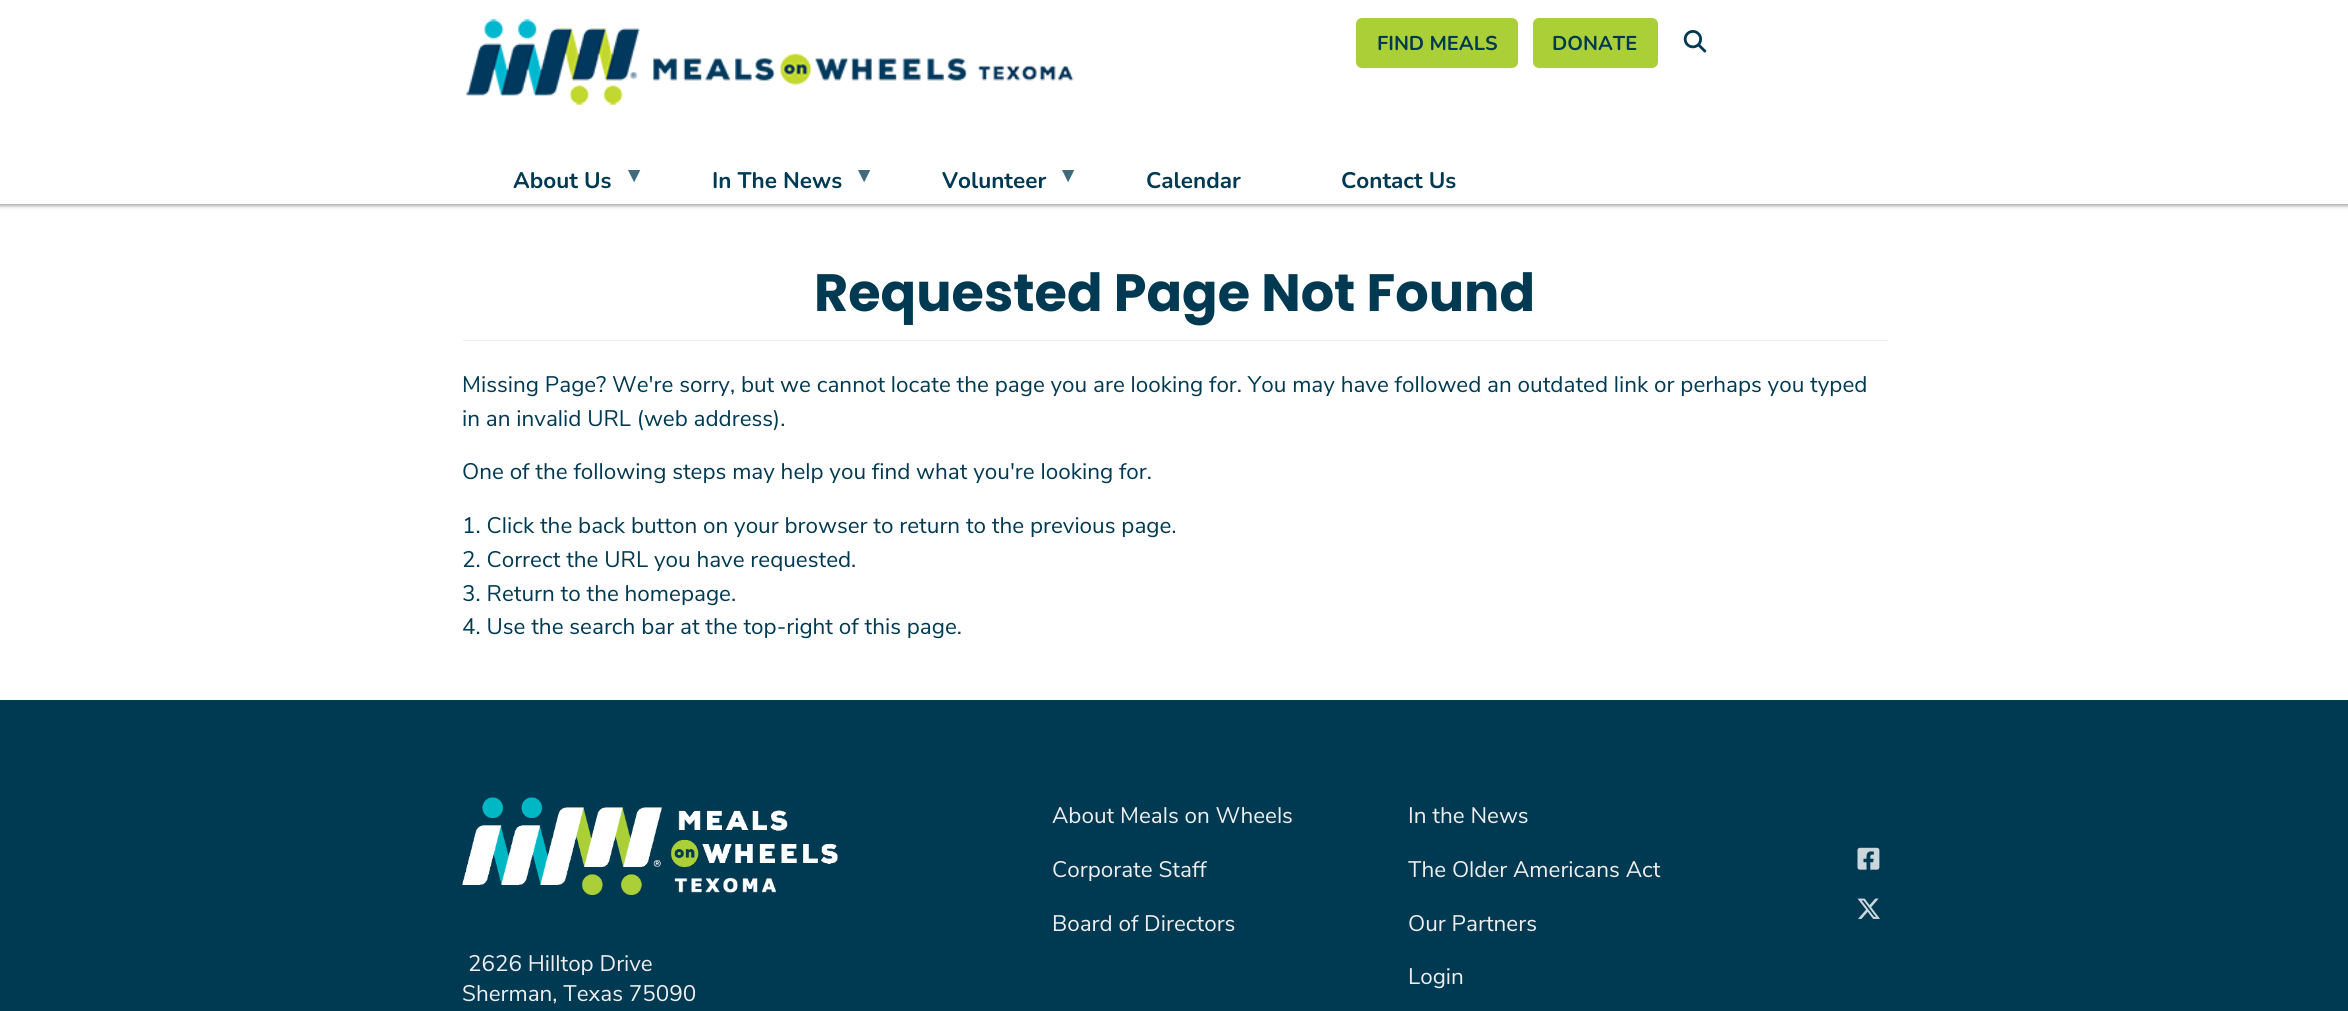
#include <cairo.h>
#include <math.h>
#include <stddef.h>

typedef struct { double x, y; const char *s; } line_t;

static void ink(cairo_t *ctx, unsigned color) {
    cairo_set_source_rgb(ctx, (color >> 16) / 255.0, (color >> 8 & 255) / 255.0, (color & 255) / 255.0);
}

static void round_path(cairo_t *ctx, double x, double y, double w, double h, double r) {
    cairo_new_sub_path(ctx);
    cairo_arc(ctx, x + w - r, y + h - r, r, 0, M_PI / 2);
    cairo_arc(ctx, x + r, y + h - r, r, M_PI / 2, M_PI);
    cairo_arc(ctx, x + r, y + r, r, M_PI, 1.5 * M_PI);
    cairo_arc(ctx, x + w - r, y + r, r, 1.5 * M_PI, 2 * M_PI);
    cairo_close_path(ctx);
}

static void blur_box(cairo_t *ctx, double x, double y, double w, double h, double r, double blur, double alpha) {
    cairo_push_group_with_content(ctx, CAIRO_CONTENT_ALPHA);
    cairo_set_operator(ctx, CAIRO_OPERATOR_SOURCE);
    for (int i = 15; i >= -15 && fmin(w, h) + blur * i / 3 > 0; i -= 2) {
        double e = blur * i / 6;
        cairo_set_source_rgba(ctx, 0, 0, 0, alpha * erfc((i - 1) / 8.5) / 2);
        round_path(ctx, x - e, y - e, w + 2 * e, h + 2 * e, fmax(0, fmin(r + e + blur * .6, fmin(w, h) / 2 + e)));
        cairo_fill(ctx);
    }
    cairo_pattern_t *soft = cairo_pop_group(ctx);
    cairo_mask(ctx, soft);
    cairo_pattern_destroy(soft);
}

static void paste(cairo_t *ctx, const char *path, double x, double y, double w, double h) {
    cairo_surface_t *image = cairo_image_surface_create_from_png(path);
    cairo_save(ctx);
    cairo_set_source_surface(ctx, image, x, y);
    cairo_rectangle(ctx, x, y, w, h);
    cairo_fill(ctx);
    cairo_restore(ctx);
    cairo_surface_destroy(image);
}

int main(void) {
    cairo_surface_t *surface = cairo_image_surface_create(CAIRO_FORMAT_RGB24, 2348, 1011);
    cairo_t *ctx = cairo_create(surface);
    cairo_font_options_t *options = cairo_font_options_create();
    cairo_font_options_set_hint_metrics(options, CAIRO_HINT_METRICS_OFF);
    cairo_font_options_set_hint_style(options, CAIRO_HINT_STYLE_NONE);
    cairo_set_font_options(ctx, options);
    cairo_set_miter_limit(ctx, 4);
    ink(ctx, 0xFFFFFF);
    cairo_paint(ctx);
    cairo_save(ctx);
    cairo_set_fill_rule(ctx, CAIRO_FILL_RULE_EVEN_ODD);
    cairo_new_path(ctx);
    cairo_move_to(ctx, 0, 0);
    cairo_line_to(ctx, 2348, 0);
    cairo_line_to(ctx, 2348, 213);
    cairo_line_to(ctx, 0, 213);
    cairo_close_path(ctx);
    cairo_move_to(ctx, 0, 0);
    cairo_line_to(ctx, 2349, 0);
    cairo_line_to(ctx, 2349, 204);
    cairo_line_to(ctx, 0, 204);
    cairo_close_path(ctx);
    cairo_clip(ctx);
    ink(ctx, 0xA9A9A9);
    blur_box(ctx, -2, -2, 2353, 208, 0, 2, 1);
    cairo_restore(ctx);
    paste(ctx, "media/1.png", 466, 18, 609, 87);
    ink(ctx, 0xABD037);
    round_path(ctx, 1356, 18, 162, 50, 6);
    cairo_fill(ctx);
    cairo_select_font_face(ctx, "Nunito", CAIRO_FONT_SLANT_NORMAL, CAIRO_FONT_WEIGHT_BOLD);
    cairo_set_font_size(ctx, 20);
    ink(ctx, 0x003952);
    cairo_move_to(ctx, 1377, 50);
    cairo_show_text(ctx, "FIND MEALS");
    ink(ctx, 0xABD037);
    round_path(ctx, 1533, 18, 125, 50, 6);
    cairo_fill(ctx);
    ink(ctx, 0x003952);
    cairo_move_to(ctx, 1552, 50);
    cairo_show_text(ctx, "DONATE");
    paste(ctx, "media/2.png", 1683, 30, 24, 23);
    ink(ctx, 0xFFFFFF);
    cairo_rectangle(ctx, 444, 203, 1462, 1);
    cairo_fill(ctx);
    cairo_set_font_size(ctx, 22.5);
    ink(ctx, 0x003952);
    cairo_move_to(ctx, 513, 188);
    cairo_show_text(ctx, "About Us");
    cairo_save(ctx);
    cairo_rectangle(ctx, 623, 170, 18, 25);
    cairo_clip(ctx);
    cairo_select_font_face(ctx, "Liberation Sans", CAIRO_FONT_SLANT_NORMAL, CAIRO_FONT_WEIGHT_BOLD);
    ink(ctx, 0x406B7D);
    cairo_move_to(ctx, 623, 182);
    cairo_show_text(ctx, "▼");
    cairo_restore(ctx);
    cairo_move_to(ctx, 712, 188);
    cairo_show_text(ctx, "In The News");
    cairo_save(ctx);
    cairo_rectangle(ctx, 854, 170, 19, 25);
    cairo_clip(ctx);
    cairo_select_font_face(ctx, "Liberation Sans", CAIRO_FONT_SLANT_NORMAL, CAIRO_FONT_WEIGHT_BOLD);
    ink(ctx, 0x406B7D);
    cairo_move_to(ctx, 853, 182);
    cairo_show_text(ctx, "▼");
    cairo_restore(ctx);
    cairo_move_to(ctx, 942, 188);
    cairo_show_text(ctx, "Volunteer");
    cairo_save(ctx);
    cairo_rectangle(ctx, 1058, 170, 18, 25);
    cairo_clip(ctx);
    cairo_select_font_face(ctx, "Liberation Sans", CAIRO_FONT_SLANT_NORMAL, CAIRO_FONT_WEIGHT_BOLD);
    ink(ctx, 0x406B7D);
    cairo_move_to(ctx, 1057, 182);
    cairo_show_text(ctx, "▼");
    cairo_restore(ctx);
    cairo_move_to(ctx, 1146, 188);
    cairo_show_text(ctx, "Calendar");
    cairo_move_to(ctx, 1341, 188);
    cairo_show_text(ctx, "Contact Us");
    ink(ctx, 0xEEEEEE);
    cairo_rectangle(ctx, 463, 340, 1425, 1);
    cairo_fill(ctx);
    cairo_select_font_face(ctx, "Poppins", CAIRO_FONT_SLANT_NORMAL, CAIRO_FONT_WEIGHT_BOLD);
    cairo_set_font_size(ctx, 52.5);
    ink(ctx, 0x003952);
    cairo_move_to(ctx, 814, 311);
    cairo_show_text(ctx, "Requested Page Not Found");
    cairo_select_font_face(ctx, "Nunito Sans", CAIRO_FONT_SLANT_NORMAL, CAIRO_FONT_WEIGHT_NORMAL);
    cairo_set_font_size(ctx, 22.5);
    {
        static const line_t items[] = {
            {462, 392, "Missing Page? We're sorry, but we cannot locate the page you are looking for. You may have followed an outdated link or perhaps you typed"},
            {462, 426, "in an invalid URL (web address)."},
            {462, 479, "One of the following steps may help you find what you're looking for."},
            {462, 533, "1. Click the back button on your browser to return to the previous page."},
            {462, 567, "2. Correct the URL you have requested."},
            {462, 601, "3. Return to the homepage."},
            {462, 634, "4. Use the search bar at the top-right of this page."},
        };
        for (size_t i = 0; i < sizeof items / sizeof *items; i++) {
            cairo_move_to(ctx, items[i].x, items[i].y);
            cairo_show_text(ctx, items[i].s);
        }
    }
    cairo_rectangle(ctx, 0, 700, 2348, 311);
    cairo_fill(ctx);
    ink(ctx, 0xEEEEEE);
    {
        static const line_t items[] = {
            {1052, 823, "About Meals on Wheels"},
            {1052, 877, "Corporate Staff"},
            {1052, 931, "Board of Directors"},
            {1408, 823, "In the News"},
            {1408, 877, "The Older Americans Act"},
            {1408, 931, "Our Partners"},
            {1408, 984, "Login"},
        };
        for (size_t i = 0; i < sizeof items / sizeof *items; i++) {
            cairo_move_to(ctx, items[i].x, items[i].y);
            cairo_show_text(ctx, items[i].s);
        }
    }
    paste(ctx, "media/3.png", 1857, 847, 23, 23);
    paste(ctx, "media/4.png", 1857, 898, 23, 21);
    paste(ctx, "media/5.png", 462, 797, 376, 98);
    cairo_move_to(ctx, 468, 971);
    cairo_show_text(ctx, "2626 Hilltop Drive");
    cairo_move_to(ctx, 462, 1001);
    cairo_show_text(ctx, "Sherman, Texas 75090");
    cairo_surface_write_to_png(surface, "image.png");
    cairo_font_options_destroy(options);
    cairo_destroy(ctx);
    cairo_surface_destroy(surface);
    return 0;
}
